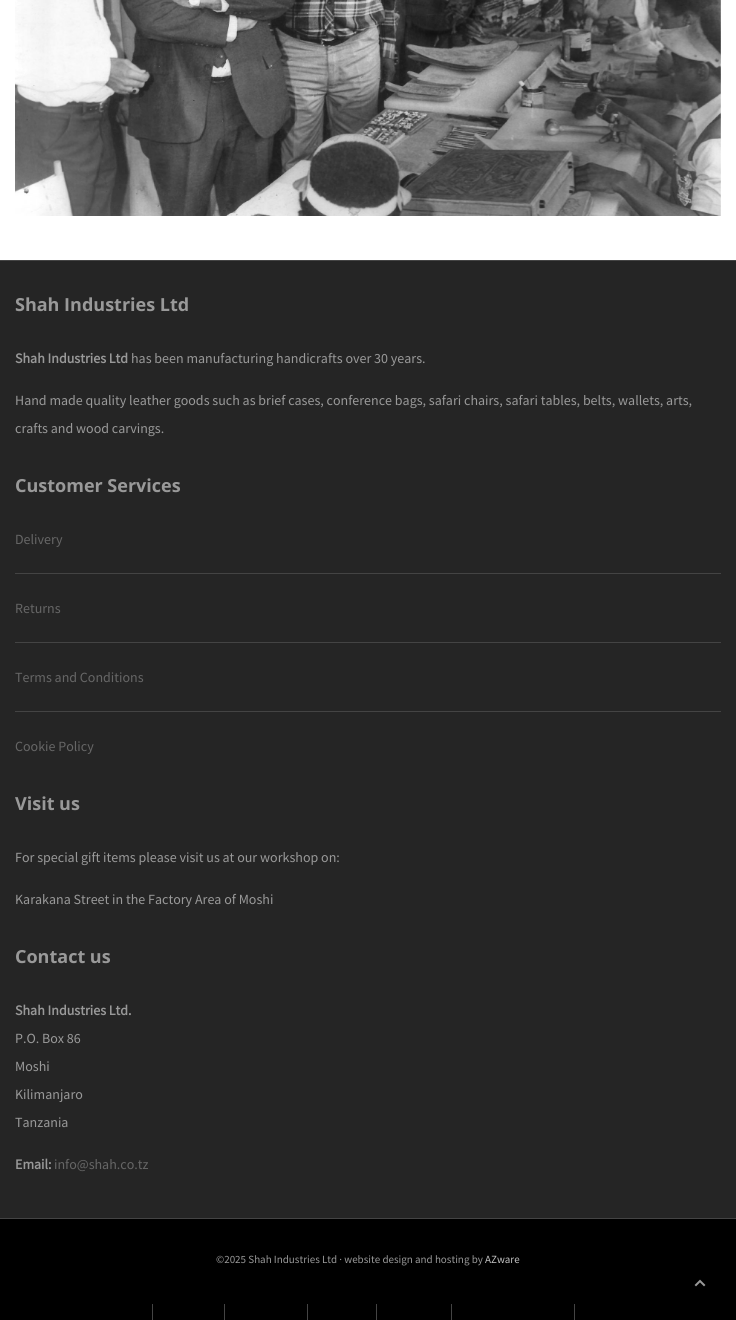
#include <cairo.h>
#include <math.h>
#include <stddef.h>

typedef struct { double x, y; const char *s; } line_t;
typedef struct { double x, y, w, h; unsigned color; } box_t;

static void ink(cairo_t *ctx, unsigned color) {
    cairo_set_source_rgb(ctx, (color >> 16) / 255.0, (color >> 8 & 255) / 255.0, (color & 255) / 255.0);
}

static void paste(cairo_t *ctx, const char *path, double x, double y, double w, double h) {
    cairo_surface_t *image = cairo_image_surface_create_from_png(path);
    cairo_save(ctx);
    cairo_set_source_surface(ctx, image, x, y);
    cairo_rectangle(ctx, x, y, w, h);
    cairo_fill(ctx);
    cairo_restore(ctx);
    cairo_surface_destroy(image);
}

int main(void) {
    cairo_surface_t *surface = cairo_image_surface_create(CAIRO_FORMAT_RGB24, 736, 1320);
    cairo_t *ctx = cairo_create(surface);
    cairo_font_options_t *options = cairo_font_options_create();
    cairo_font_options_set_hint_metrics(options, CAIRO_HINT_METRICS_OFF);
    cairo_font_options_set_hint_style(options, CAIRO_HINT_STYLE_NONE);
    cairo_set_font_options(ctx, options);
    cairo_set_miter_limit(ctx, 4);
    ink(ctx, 0xFFFFFF);
    cairo_paint(ctx);
    paste(ctx, "media/1.png", 15, 0, 706, 216);
    ink(ctx, 0x252525);
    cairo_rectangle(ctx, 0, 261, 736, 957);
    cairo_fill(ctx);
    ink(ctx, 0x444444);
    cairo_rectangle(ctx, 0, 260, 736, 1);
    cairo_fill(ctx);
    cairo_select_font_face(ctx, "Open Sans", CAIRO_FONT_SLANT_NORMAL, CAIRO_FONT_WEIGHT_BOLD);
    cairo_set_font_size(ctx, 18);
    ink(ctx, 0x999999);
    cairo_move_to(ctx, 15, 311);
    cairo_show_text(ctx, "Shah Industries Ltd");
    cairo_select_font_face(ctx, "Source Sans Pro", CAIRO_FONT_SLANT_NORMAL, CAIRO_FONT_WEIGHT_BOLD);
    cairo_set_font_size(ctx, 14);
    cairo_move_to(ctx, 15, 363);
    cairo_show_text(ctx, "Shah Industries Ltd");
    cairo_select_font_face(ctx, "Source Sans Pro", CAIRO_FONT_SLANT_NORMAL, CAIRO_FONT_WEIGHT_NORMAL);
    {
        static const line_t items[] = {
            {131, 363, "has been manufacturing handicrafts over 30 years."},
            {15, 405, "Hand made quality leather goods such as brief cases, conference bags, safari chairs, safari tables, belts, wallets, arts,"},
            {15, 433, "crafts and wood carvings."},
        };
        for (size_t i = 0; i < sizeof items / sizeof *items; i++) {
            cairo_move_to(ctx, items[i].x, items[i].y);
            cairo_show_text(ctx, items[i].s);
        }
    }
    cairo_select_font_face(ctx, "Open Sans", CAIRO_FONT_SLANT_NORMAL, CAIRO_FONT_WEIGHT_BOLD);
    cairo_set_font_size(ctx, 18);
    cairo_move_to(ctx, 15, 492);
    cairo_show_text(ctx, "Customer Services");
    cairo_select_font_face(ctx, "Source Sans Pro", CAIRO_FONT_SLANT_NORMAL, CAIRO_FONT_WEIGHT_NORMAL);
    cairo_set_font_size(ctx, 14);
    ink(ctx, 0x666666);
    cairo_move_to(ctx, 15, 544);
    cairo_show_text(ctx, "Delivery");
    ink(ctx, 0x444444);
    cairo_rectangle(ctx, 15, 573, 706, 1);
    cairo_fill(ctx);
    ink(ctx, 0x666666);
    cairo_move_to(ctx, 15, 613);
    cairo_show_text(ctx, "Returns");
    ink(ctx, 0x444444);
    cairo_rectangle(ctx, 15, 642, 706, 1);
    cairo_fill(ctx);
    ink(ctx, 0x666666);
    cairo_move_to(ctx, 15, 682);
    cairo_show_text(ctx, "Terms and Conditions");
    ink(ctx, 0x444444);
    cairo_rectangle(ctx, 15, 711, 706, 1);
    cairo_fill(ctx);
    ink(ctx, 0x666666);
    cairo_move_to(ctx, 15, 751);
    cairo_show_text(ctx, "Cookie Policy");
    cairo_select_font_face(ctx, "Open Sans", CAIRO_FONT_SLANT_NORMAL, CAIRO_FONT_WEIGHT_BOLD);
    cairo_set_font_size(ctx, 18);
    ink(ctx, 0x999999);
    cairo_move_to(ctx, 15, 810);
    cairo_show_text(ctx, "Visit us");
    cairo_select_font_face(ctx, "Source Sans Pro", CAIRO_FONT_SLANT_NORMAL, CAIRO_FONT_WEIGHT_NORMAL);
    cairo_set_font_size(ctx, 14);
    cairo_move_to(ctx, 15, 862);
    cairo_show_text(ctx, "For special gift items please visit us at our workshop on:");
    cairo_move_to(ctx, 15, 904);
    cairo_show_text(ctx, "Karakana Street in the Factory Area of Moshi");
    cairo_select_font_face(ctx, "Open Sans", CAIRO_FONT_SLANT_NORMAL, CAIRO_FONT_WEIGHT_BOLD);
    cairo_set_font_size(ctx, 18);
    cairo_move_to(ctx, 15, 963);
    cairo_show_text(ctx, "Contact us");
    cairo_select_font_face(ctx, "Source Sans Pro", CAIRO_FONT_SLANT_NORMAL, CAIRO_FONT_WEIGHT_BOLD);
    cairo_set_font_size(ctx, 14);
    cairo_move_to(ctx, 15, 1015);
    cairo_show_text(ctx, "Shah Industries Ltd.");
    cairo_select_font_face(ctx, "Source Sans Pro", CAIRO_FONT_SLANT_NORMAL, CAIRO_FONT_WEIGHT_NORMAL);
    {
        static const line_t items[] = {
            {15, 1043, "P.O. Box 86"},
            {15, 1071, "Moshi"},
            {15, 1099, "Kilimanjaro"},
            {15, 1127, "Tanzania"},
        };
        for (size_t i = 0; i < sizeof items / sizeof *items; i++) {
            cairo_move_to(ctx, items[i].x, items[i].y);
            cairo_show_text(ctx, items[i].s);
        }
    }
    cairo_select_font_face(ctx, "Source Sans Pro", CAIRO_FONT_SLANT_NORMAL, CAIRO_FONT_WEIGHT_BOLD);
    cairo_move_to(ctx, 15, 1169);
    cairo_show_text(ctx, "Email:");
    cairo_select_font_face(ctx, "Source Sans Pro", CAIRO_FONT_SLANT_NORMAL, CAIRO_FONT_WEIGHT_NORMAL);
    ink(ctx, 0x666666);
    cairo_move_to(ctx, 54, 1169);
    cairo_show_text(ctx, "info@shah.co.tz");
    ink(ctx, 0x000000);
    cairo_rectangle(ctx, 0, 1219, 736, 101);
    cairo_fill(ctx);
    ink(ctx, 0x444444);
    cairo_rectangle(ctx, 0, 1218, 736, 1);
    cairo_fill(ctx);
    cairo_set_font_size(ctx, 11);
    ink(ctx, 0x999999);
    cairo_move_to(ctx, 216, 1263);
    cairo_show_text(ctx, "©2025 Shah Industries Ltd · website design and hosting by");
    ink(ctx, 0xC4C4C4);
    cairo_move_to(ctx, 485, 1263);
    cairo_show_text(ctx, "AZware");
    {
        static const box_t items[] = {
            {152, 1304, 1, 16, 0x444444},
            {224, 1304, 1, 16, 0x444444},
            {307, 1304, 1, 16, 0x444444},
            {376, 1304, 1, 16, 0x444444},
            {451, 1304, 1, 16, 0x444444},
            {574, 1304, 1, 16, 0x444444},
        };
        for (size_t i = 0; i < sizeof items / sizeof *items; i++) {
            ink(ctx, items[i].color);
            cairo_rectangle(ctx, items[i].x, items[i].y, items[i].w, items[i].h);
            cairo_fill(ctx);
        }
    }
    paste(ctx, "media/2.png", 694, 1279, 12, 8);
    cairo_surface_write_to_png(surface, "image.png");
    cairo_font_options_destroy(options);
    cairo_destroy(ctx);
    cairo_surface_destroy(surface);
    return 0;
}
